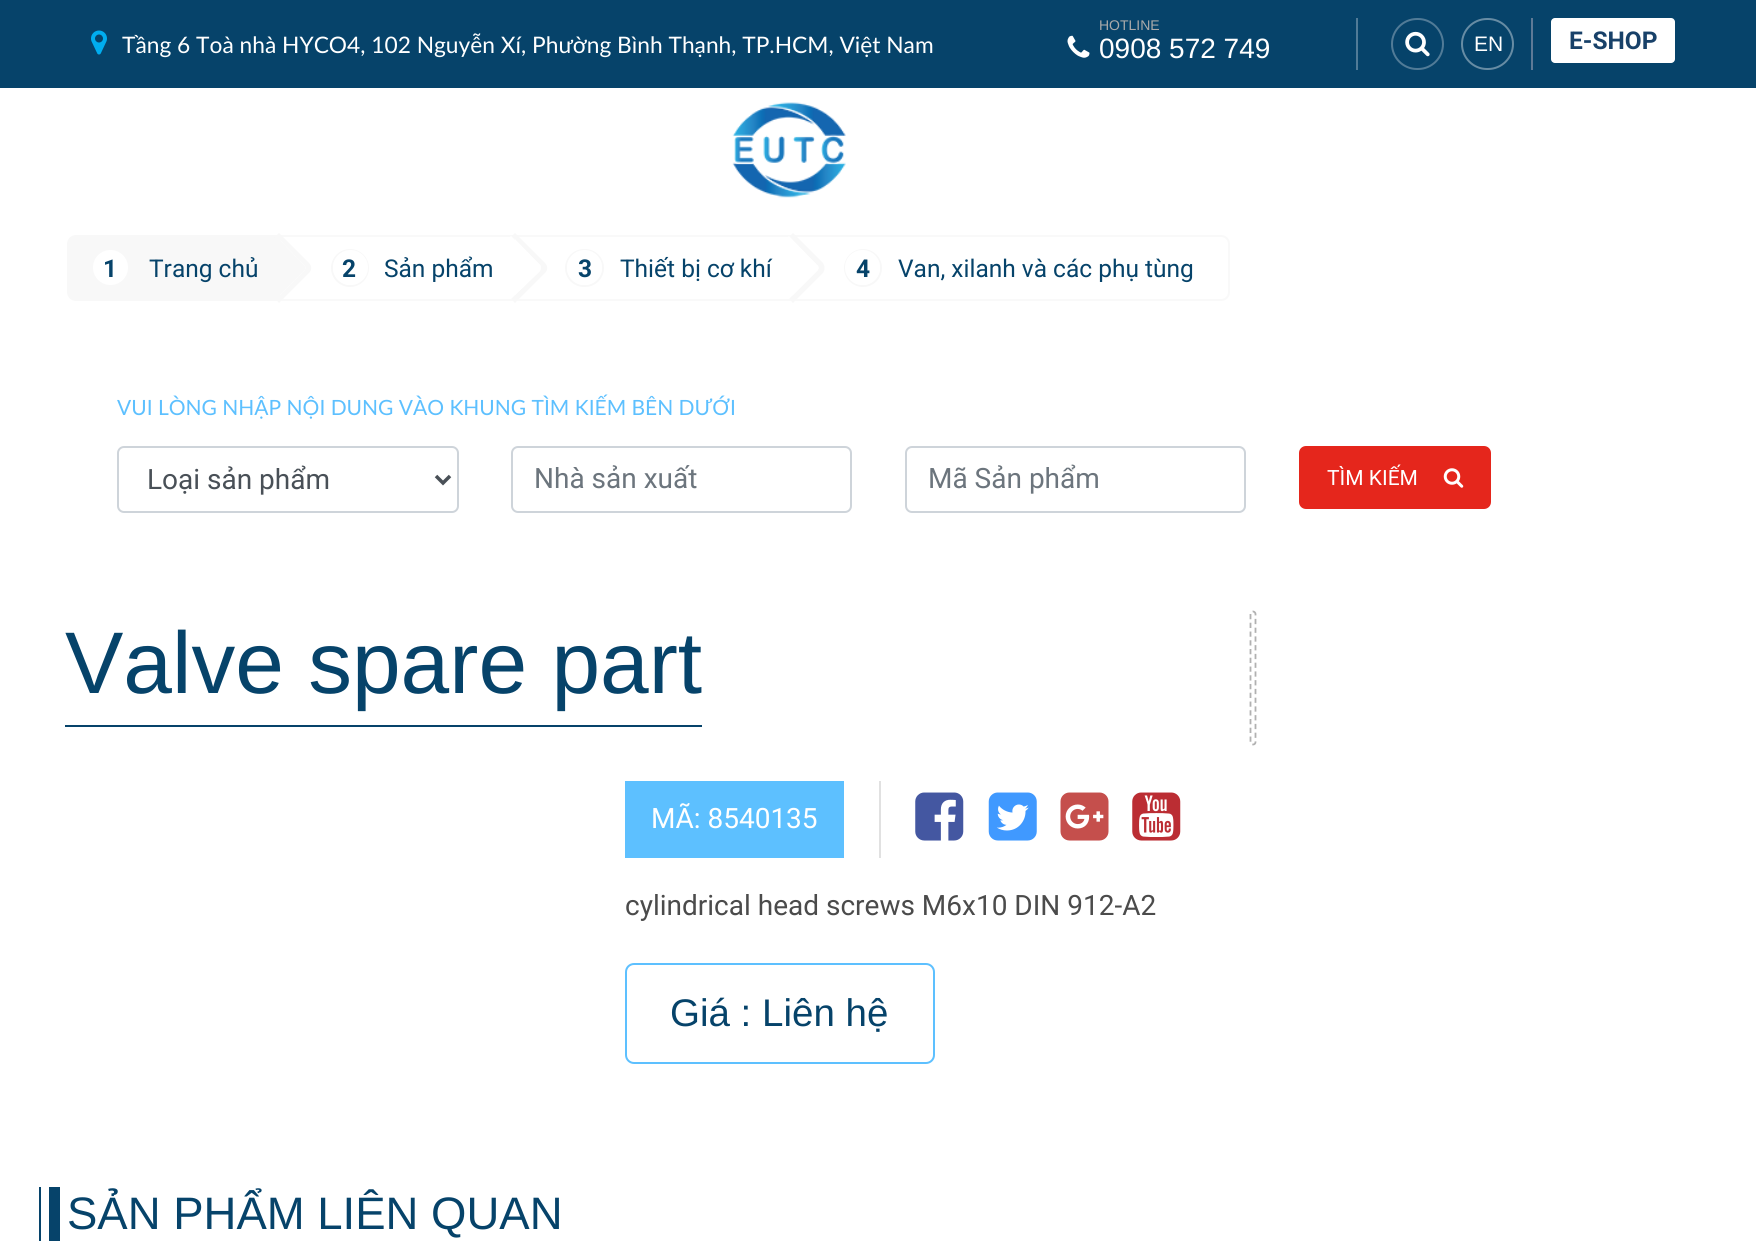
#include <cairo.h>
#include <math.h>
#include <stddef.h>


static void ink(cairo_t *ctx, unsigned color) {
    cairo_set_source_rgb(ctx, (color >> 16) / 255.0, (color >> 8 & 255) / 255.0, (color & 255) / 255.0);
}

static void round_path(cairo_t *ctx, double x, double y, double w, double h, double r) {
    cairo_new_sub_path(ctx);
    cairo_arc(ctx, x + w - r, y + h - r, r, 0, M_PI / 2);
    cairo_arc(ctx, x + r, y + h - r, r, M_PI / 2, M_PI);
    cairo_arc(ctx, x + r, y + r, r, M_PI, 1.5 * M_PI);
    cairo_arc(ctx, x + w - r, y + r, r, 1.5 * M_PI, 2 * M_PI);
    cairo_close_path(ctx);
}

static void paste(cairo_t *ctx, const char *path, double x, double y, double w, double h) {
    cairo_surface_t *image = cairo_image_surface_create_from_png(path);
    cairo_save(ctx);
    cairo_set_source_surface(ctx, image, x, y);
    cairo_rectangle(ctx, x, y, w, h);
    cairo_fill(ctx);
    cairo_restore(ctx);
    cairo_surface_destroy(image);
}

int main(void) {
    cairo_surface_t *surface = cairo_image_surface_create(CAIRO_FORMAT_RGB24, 1756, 1255);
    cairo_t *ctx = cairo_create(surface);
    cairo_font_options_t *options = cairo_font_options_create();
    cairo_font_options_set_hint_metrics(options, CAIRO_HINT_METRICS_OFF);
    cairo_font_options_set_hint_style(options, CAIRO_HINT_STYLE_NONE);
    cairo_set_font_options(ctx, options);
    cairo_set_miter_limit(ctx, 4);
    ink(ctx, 0xFFFFFF);
    cairo_paint(ctx);
    ink(ctx, 0x06436A);
    cairo_rectangle(ctx, 0, 0, 1756, 88);
    cairo_fill(ctx);
    paste(ctx, "media/1.png", 91, 30, 16, 25);
    cairo_select_font_face(ctx, "Lato", CAIRO_FONT_SLANT_NORMAL, CAIRO_FONT_WEIGHT_NORMAL);
    cairo_set_font_size(ctx, 22.75);
    ink(ctx, 0xFFFFFF);
    cairo_move_to(ctx, 122, 53);
    cairo_show_text(ctx, "Tầng 6 Toà nhà HYCO4, 102 Nguyễn Xí, Phường Bình Thạnh, TP.HCM, Việt Nam");
    paste(ctx, "media/2.png", 1067, 35, 23, 23);
    cairo_select_font_face(ctx, "Liberation Sans", CAIRO_FONT_SLANT_NORMAL, CAIRO_FONT_WEIGHT_NORMAL);
    cairo_set_font_size(ctx, 14);
    ink(ctx, 0xAAAAAA);
    cairo_move_to(ctx, 1099, 30);
    cairo_show_text(ctx, "HOTLINE");
    cairo_set_font_size(ctx, 28);
    ink(ctx, 0xFFFFFF);
    cairo_move_to(ctx, 1099, 58);
    cairo_show_text(ctx, "0908 572 749");
    ink(ctx, 0x517B97);
    cairo_rectangle(ctx, 1356, 18, 2, 52);
    cairo_fill(ctx);
    round_path(ctx, 1392, 19, 51, 50, 25);
    cairo_stroke(ctx);
    paste(ctx, "media/3.png", 1405, 31, 25, 26);
    round_path(ctx, 1462, 19, 51, 50, 25);
    ink(ctx, 0x678CA4);
    cairo_stroke(ctx);
    cairo_set_font_size(ctx, 21);
    ink(ctx, 0xFFFFFF);
    cairo_move_to(ctx, 1474, 51);
    cairo_show_text(ctx, "EN");
    ink(ctx, 0x5E7A96);
    cairo_rectangle(ctx, 1531, 18, 2, 52);
    cairo_fill(ctx);
    ink(ctx, 0xFFFFFF);
    round_path(ctx, 1551, 18, 124, 45, 4);
    cairo_fill(ctx);
    cairo_select_font_face(ctx, "Roboto", CAIRO_FONT_SLANT_NORMAL, CAIRO_FONT_WEIGHT_BOLD);
    cairo_set_font_size(ctx, 24.5);
    ink(ctx, 0x184169);
    cairo_move_to(ctx, 1569, 49);
    cairo_show_text(ctx, "E-SHOP");
    paste(ctx, "media/4.png", 732, 102, 114, 96);
    ink(ctx, 0xF8F8F8);
    cairo_new_path(ctx);
    cairo_move_to(ctx, 76, 235);
    cairo_line_to(ctx, 278, 235);
    cairo_line_to(ctx, 278, 301);
    cairo_line_to(ctx, 76, 301);
    cairo_curve_to(ctx, 71, 301, 67, 297, 67, 292);
    cairo_line_to(ctx, 67, 244);
    cairo_curve_to(ctx, 67, 239, 71, 235, 76, 235);
    cairo_close_path(ctx);
    cairo_fill(ctx);
    ink(ctx, 0xFFFFFF);
    cairo_arc(ctx, 110.5, 267.5, 17.5, 0, 2 * M_PI);
    cairo_fill(ctx);
    ink(ctx, 0x06436A);
    cairo_move_to(ctx, 103, 277);
    cairo_show_text(ctx, "1");
    cairo_select_font_face(ctx, "Roboto", CAIRO_FONT_SLANT_NORMAL, CAIRO_FONT_WEIGHT_NORMAL);
    cairo_move_to(ctx, 149, 277);
    cairo_show_text(ctx, "Trang chủ");
    cairo_rectangle(ctx, 279, 236, 233, 64);
    ink(ctx, 0xF9F9F9);
    cairo_stroke(ctx);
    ink(ctx, 0xF8F8F8);
    cairo_new_path(ctx);
    cairo_move_to(ctx, 279, 233);
    cairo_line_to(ctx, 309, 263);
    cairo_curve_to(ctx, 312, 266, 312, 270, 309, 273);
    cairo_line_to(ctx, 279, 303);
    cairo_line_to(ctx, 275, 298);
    cairo_line_to(ctx, 276, 299);
    cairo_line_to(ctx, 304, 271);
    cairo_curve_to(ctx, 306, 269, 306, 266, 304, 265);
    cairo_line_to(ctx, 276, 236);
    cairo_line_to(ctx, 277, 235);
    cairo_close_path(ctx);
    cairo_fill(ctx);
    cairo_new_path(ctx);
    cairo_move_to(ctx, 276, 236);
    cairo_line_to(ctx, 304, 265);
    cairo_curve_to(ctx, 306, 266, 306, 269, 304, 271);
    cairo_line_to(ctx, 276, 299);
    cairo_curve_to(ctx, 258, 282, 258, 254, 276, 236);
    cairo_close_path(ctx);
    cairo_fill(ctx);
    cairo_arc(ctx, 350, 268, 18, 0, 2 * M_PI);
    cairo_stroke(ctx);
    ink(ctx, 0xFFFFFF);
    cairo_arc(ctx, 350.5, 267.5, 17.5, 0, 2 * M_PI);
    cairo_fill(ctx);
    cairo_select_font_face(ctx, "Roboto", CAIRO_FONT_SLANT_NORMAL, CAIRO_FONT_WEIGHT_BOLD);
    ink(ctx, 0x06436A);
    cairo_move_to(ctx, 342, 277);
    cairo_show_text(ctx, "2");
    cairo_select_font_face(ctx, "Roboto", CAIRO_FONT_SLANT_NORMAL, CAIRO_FONT_WEIGHT_NORMAL);
    cairo_move_to(ctx, 384, 277);
    cairo_show_text(ctx, "Sản phẩm");
    cairo_rectangle(ctx, 514, 236, 276, 64);
    ink(ctx, 0xF9F9F9);
    cairo_stroke(ctx);
    ink(ctx, 0xF8F8F8);
    cairo_new_path(ctx);
    cairo_move_to(ctx, 515, 233);
    cairo_line_to(ctx, 545, 263);
    cairo_curve_to(ctx, 548, 266, 548, 270, 545, 273);
    cairo_line_to(ctx, 515, 303);
    cairo_line_to(ctx, 511, 299);
    cairo_line_to(ctx, 540, 271);
    cairo_curve_to(ctx, 541, 269, 541, 266, 540, 265);
    cairo_line_to(ctx, 512, 236);
    cairo_line_to(ctx, 513, 235);
    cairo_close_path(ctx);
    cairo_fill(ctx);
    ink(ctx, 0xFFFFFF);
    cairo_new_path(ctx);
    cairo_move_to(ctx, 511, 236);
    cairo_line_to(ctx, 540, 265);
    cairo_curve_to(ctx, 541, 266, 541, 269, 540, 271);
    cairo_line_to(ctx, 511, 299);
    cairo_curve_to(ctx, 494, 282, 494, 254, 511, 236);
    cairo_close_path(ctx);
    cairo_fill(ctx);
    round_path(ctx, 566, 250, 37, 36, 18);
    ink(ctx, 0xF8F8F8);
    cairo_stroke(ctx);
    ink(ctx, 0xFFFFFF);
    cairo_arc(ctx, 584.5, 267.5, 17.5, 0, 2 * M_PI);
    cairo_fill(ctx);
    cairo_select_font_face(ctx, "Roboto", CAIRO_FONT_SLANT_NORMAL, CAIRO_FONT_WEIGHT_BOLD);
    ink(ctx, 0x06436A);
    cairo_move_to(ctx, 578, 277);
    cairo_show_text(ctx, "3");
    cairo_select_font_face(ctx, "Roboto", CAIRO_FONT_SLANT_NORMAL, CAIRO_FONT_WEIGHT_NORMAL);
    cairo_move_to(ctx, 620, 277);
    cairo_show_text(ctx, "Thiết bị cơ khí");
    cairo_new_path(ctx);
    cairo_move_to(ctx, 792, 236);
    cairo_line_to(ctx, 1221, 236);
    cairo_curve_to(ctx, 1225.5, 236, 1229, 239.5, 1229, 244);
    cairo_line_to(ctx, 1229, 292);
    cairo_curve_to(ctx, 1229, 296.5, 1225.5, 300, 1221, 300);
    cairo_line_to(ctx, 792, 300);
    cairo_close_path(ctx);
    ink(ctx, 0xF9F9F9);
    cairo_stroke(ctx);
    ink(ctx, 0xF8F8F8);
    cairo_new_path(ctx);
    cairo_move_to(ctx, 793, 233);
    cairo_line_to(ctx, 823, 263);
    cairo_curve_to(ctx, 825, 266, 825, 270, 823, 273);
    cairo_line_to(ctx, 793, 303);
    cairo_line_to(ctx, 789, 299);
    cairo_line_to(ctx, 817, 271);
    cairo_curve_to(ctx, 819, 269, 819, 266, 817, 265);
    cairo_line_to(ctx, 789, 237);
    cairo_line_to(ctx, 791, 235);
    cairo_close_path(ctx);
    cairo_fill(ctx);
    ink(ctx, 0xFFFFFF);
    cairo_new_path(ctx);
    cairo_move_to(ctx, 789, 236);
    cairo_line_to(ctx, 817, 265);
    cairo_curve_to(ctx, 819, 266, 819, 269, 817, 271);
    cairo_line_to(ctx, 789, 299);
    cairo_curve_to(ctx, 772, 282, 772, 254, 789, 236);
    cairo_close_path(ctx);
    cairo_fill(ctx);
    cairo_arc(ctx, 863, 268, 18, 0, 2 * M_PI);
    ink(ctx, 0xF8F8F8);
    cairo_stroke(ctx);
    ink(ctx, 0xFFFFFF);
    cairo_arc(ctx, 862.5, 267.5, 17.5, 0, 2 * M_PI);
    cairo_fill(ctx);
    cairo_select_font_face(ctx, "Roboto", CAIRO_FONT_SLANT_NORMAL, CAIRO_FONT_WEIGHT_BOLD);
    ink(ctx, 0x06436A);
    cairo_move_to(ctx, 856, 277);
    cairo_show_text(ctx, "4");
    cairo_select_font_face(ctx, "Roboto", CAIRO_FONT_SLANT_NORMAL, CAIRO_FONT_WEIGHT_NORMAL);
    cairo_move_to(ctx, 898, 277);
    cairo_show_text(ctx, "Van, xilanh và các phụ tùng");
    cairo_select_font_face(ctx, "Lato", CAIRO_FONT_SLANT_NORMAL, CAIRO_FONT_WEIGHT_NORMAL);
    cairo_set_font_size(ctx, 21);
    ink(ctx, 0x5DC0FF);
    cairo_move_to(ctx, 117, 415);
    cairo_show_text(ctx, "VUI LÒNG NHẬP NỘI DUNG VÀO KHUNG TÌM KIẾM BÊN DƯỚI");
    round_path(ctx, 118, 447, 340, 65, 6);
    ink(ctx, 0xCED4DA);
    cairo_stroke(ctx);
    cairo_new_path(ctx);
    cairo_move_to(ctx, 436, 476);
    cairo_line_to(ctx, 443, 483);
    cairo_line_to(ctx, 450, 476);
    ink(ctx, 0x495057);
    cairo_set_line_width(ctx, 3.5);
    cairo_stroke(ctx);
    cairo_select_font_face(ctx, "Roboto", CAIRO_FONT_SLANT_NORMAL, CAIRO_FONT_WEIGHT_NORMAL);
    cairo_set_font_size(ctx, 28);
    cairo_move_to(ctx, 147, 489);
    cairo_show_text(ctx, "Loại sản phẩm");
    round_path(ctx, 512, 447, 339, 65, 6);
    ink(ctx, 0xCED4DA);
    cairo_set_line_width(ctx, 2);
    cairo_stroke(ctx);
    ink(ctx, 0x6C757D);
    cairo_move_to(ctx, 534, 488);
    cairo_show_text(ctx, "Nhà sản xuất");
    round_path(ctx, 906, 447, 339, 65, 6);
    ink(ctx, 0xCED4DA);
    cairo_stroke(ctx);
    ink(ctx, 0x6C757D);
    cairo_move_to(ctx, 928, 488);
    cairo_show_text(ctx, "Mã Sản phẩm");
    ink(ctx, 0xE5261C);
    round_path(ctx, 1299, 446, 192, 63, 7);
    cairo_fill(ctx);
    cairo_set_font_size(ctx, 21);
    ink(ctx, 0xFFFFFF);
    cairo_move_to(ctx, 1327, 485);
    cairo_show_text(ctx, "TÌM KIẾM");
    paste(ctx, "media/5.png", 1443, 468, 21, 20);
    cairo_select_font_face(ctx, "Liberation Sans", CAIRO_FONT_SLANT_NORMAL, CAIRO_FONT_WEIGHT_NORMAL);
    cairo_set_font_size(ctx, 87.5);
    ink(ctx, 0x06436A);
    cairo_move_to(ctx, 65, 693);
    cairo_show_text(ctx, "Valve spare part");
    cairo_rectangle(ctx, 65, 725, 637, 2);
    cairo_fill(ctx);
    cairo_new_path(ctx);
    cairo_move_to(ctx, 1253, 611.5);
    cairo_curve_to(ctx, 1254.5, 611.5, 1255.5, 613, 1255.5, 614);
    cairo_line_to(ctx, 1255.5, 742);
    cairo_curve_to(ctx, 1255.5, 743.5, 1254.5, 744.5, 1253, 744.5);
    cairo_curve_to(ctx, 1251.5, 744.5, 1250.5, 743.5, 1250.5, 742);
    cairo_line_to(ctx, 1250.5, 614);
    cairo_curve_to(ctx, 1250.5, 613, 1251.5, 611.5, 1253, 611.5);
    cairo_close_path(ctx);
    ink(ctx, 0xB1B1B1);
    cairo_set_line_width(ctx, 1.8);
    cairo_set_dash(ctx, (double[]){5.25, 3.5}, 2, 0);
    cairo_stroke(ctx);
    ink(ctx, 0x5DC0FF);
    cairo_rectangle(ctx, 625, 781, 219, 77);
    cairo_fill(ctx);
    cairo_select_font_face(ctx, "Roboto", CAIRO_FONT_SLANT_NORMAL, CAIRO_FONT_WEIGHT_NORMAL);
    cairo_set_font_size(ctx, 28);
    ink(ctx, 0xFFFFFF);
    cairo_move_to(ctx, 651, 828);
    cairo_show_text(ctx, "MÃ: 8540135");
    ink(ctx, 0xE1E1E1);
    cairo_rectangle(ctx, 879, 781, 2, 77);
    cairo_fill(ctx);
    paste(ctx, "media/6.png", 915, 792, 49, 49);
    paste(ctx, "media/7.png", 988, 792, 49, 49);
    paste(ctx, "media/8.png", 1060, 792, 49, 49);
    paste(ctx, "media/9.png", 1132, 792, 49, 49);
    ink(ctx, 0x4B4B4B);
    cairo_move_to(ctx, 625, 915);
    cairo_show_text(ctx, "cylindrical head screws M6x10 DIN 912-A2");
    round_path(ctx, 626, 964, 308, 99, 8);
    ink(ctx, 0x5DC0FF);
    cairo_set_line_width(ctx, 2);
    cairo_set_dash(ctx, NULL, 0, 0);
    cairo_stroke(ctx);
    cairo_select_font_face(ctx, "Liberation Sans", CAIRO_FONT_SLANT_NORMAL, CAIRO_FONT_WEIGHT_NORMAL);
    cairo_set_font_size(ctx, 38.5);
    ink(ctx, 0x06436A);
    cairo_move_to(ctx, 670, 1026);
    cairo_show_text(ctx, "Giá : Liên hệ");
    cairo_rectangle(ctx, 39, 1187, 2, 54);
    cairo_fill(ctx);
    cairo_rectangle(ctx, 49, 1187, 11, 54);
    cairo_fill(ctx);
    cairo_set_font_size(ctx, 45.5);
    cairo_move_to(ctx, 67, 1229);
    cairo_show_text(ctx, "SẢN PHẨM LIÊN QUAN");
    cairo_surface_write_to_png(surface, "image.png");
    cairo_font_options_destroy(options);
    cairo_destroy(ctx);
    cairo_surface_destroy(surface);
    return 0;
}
